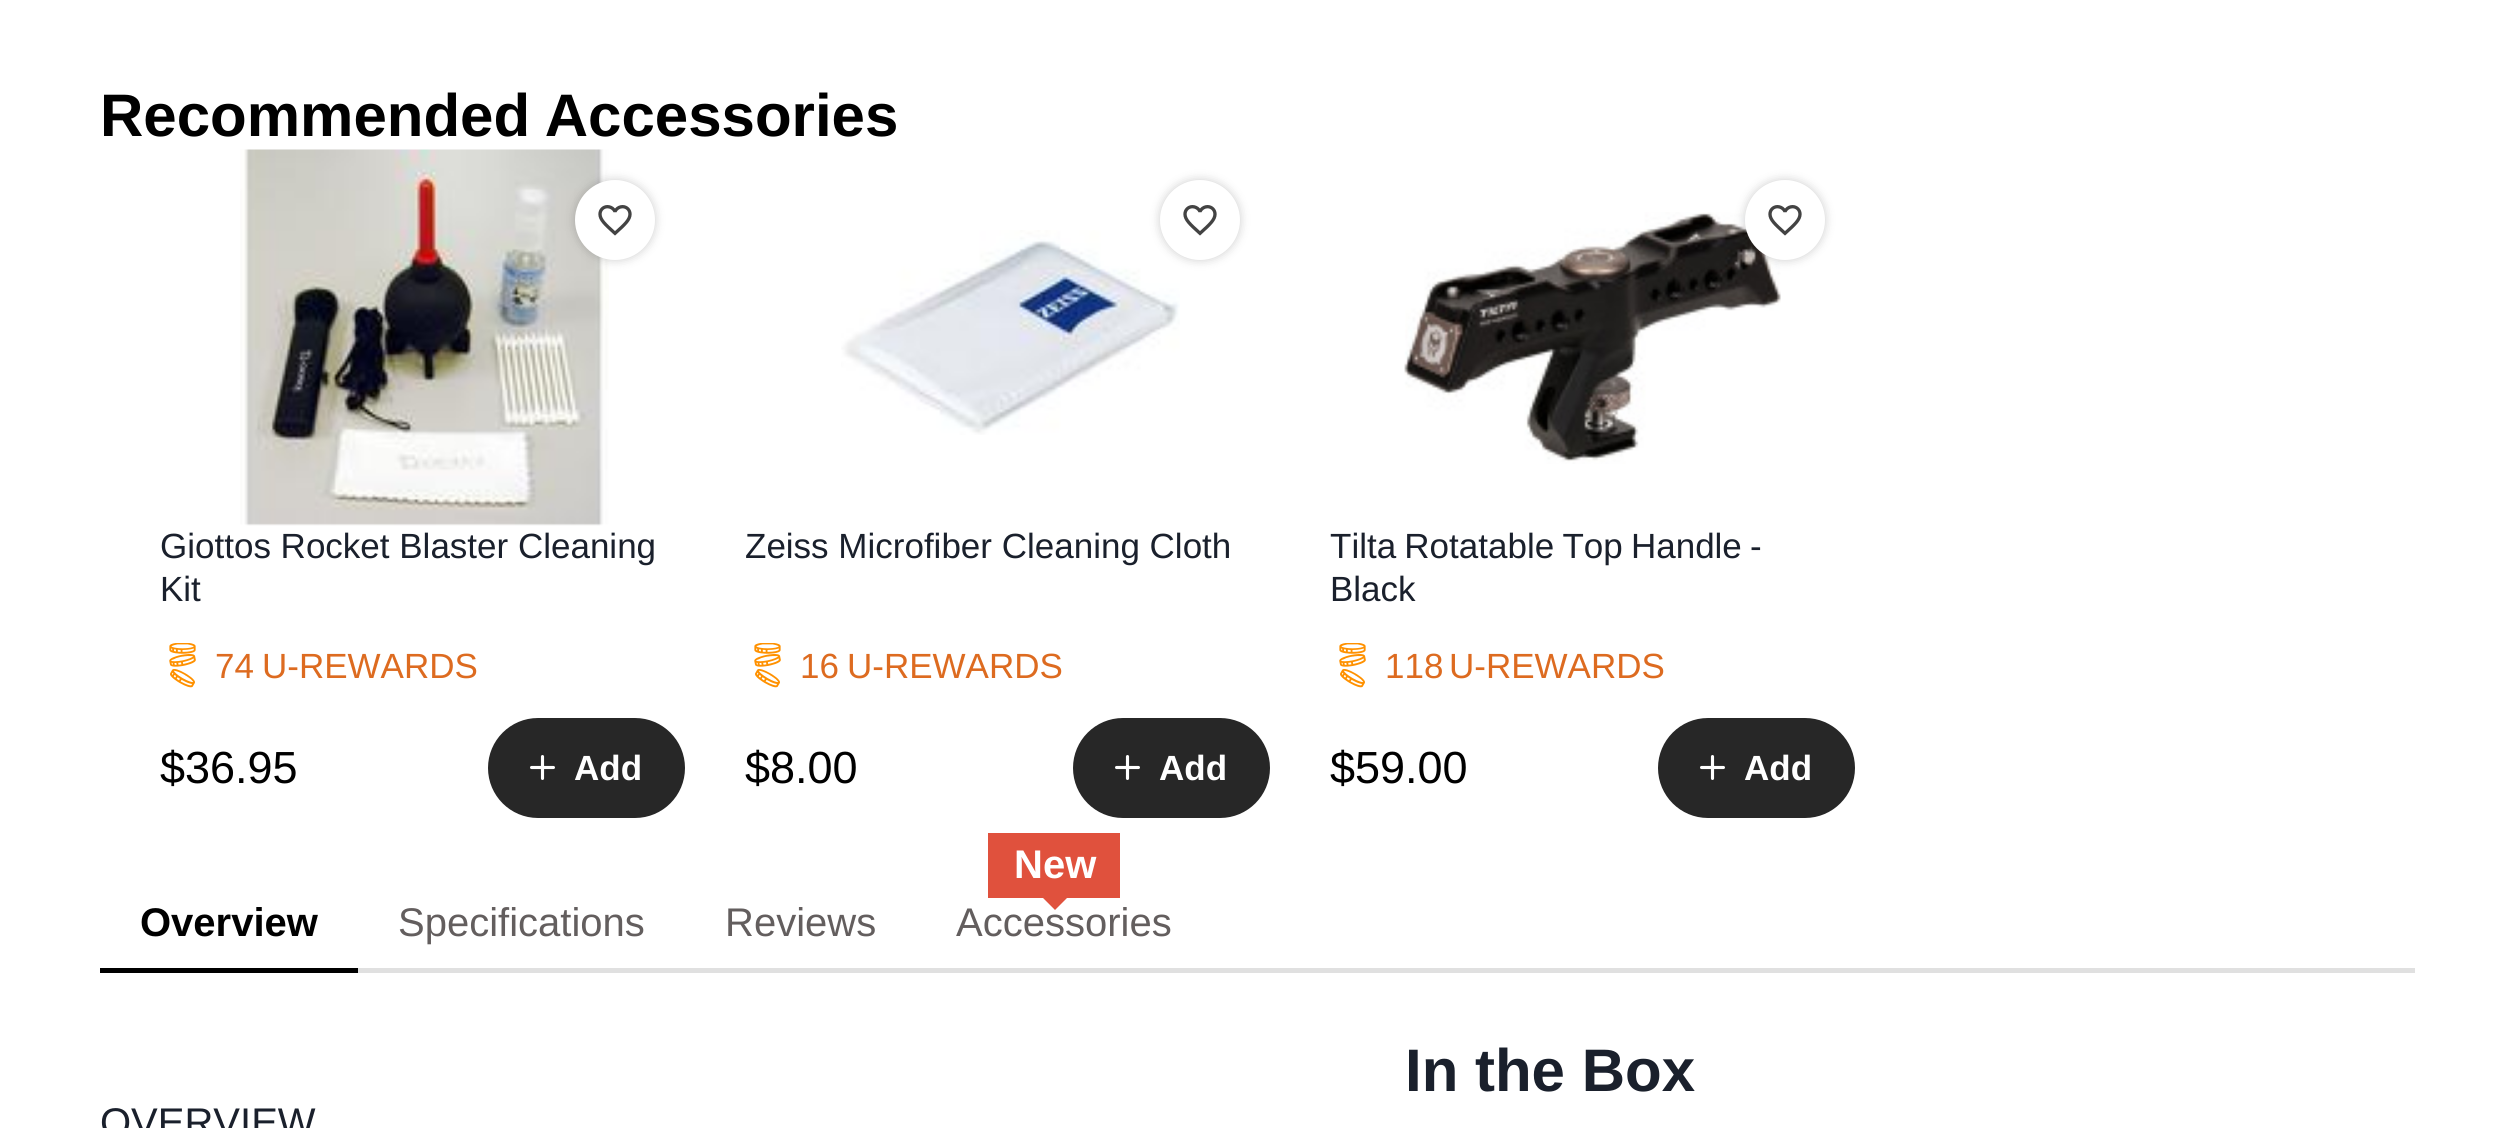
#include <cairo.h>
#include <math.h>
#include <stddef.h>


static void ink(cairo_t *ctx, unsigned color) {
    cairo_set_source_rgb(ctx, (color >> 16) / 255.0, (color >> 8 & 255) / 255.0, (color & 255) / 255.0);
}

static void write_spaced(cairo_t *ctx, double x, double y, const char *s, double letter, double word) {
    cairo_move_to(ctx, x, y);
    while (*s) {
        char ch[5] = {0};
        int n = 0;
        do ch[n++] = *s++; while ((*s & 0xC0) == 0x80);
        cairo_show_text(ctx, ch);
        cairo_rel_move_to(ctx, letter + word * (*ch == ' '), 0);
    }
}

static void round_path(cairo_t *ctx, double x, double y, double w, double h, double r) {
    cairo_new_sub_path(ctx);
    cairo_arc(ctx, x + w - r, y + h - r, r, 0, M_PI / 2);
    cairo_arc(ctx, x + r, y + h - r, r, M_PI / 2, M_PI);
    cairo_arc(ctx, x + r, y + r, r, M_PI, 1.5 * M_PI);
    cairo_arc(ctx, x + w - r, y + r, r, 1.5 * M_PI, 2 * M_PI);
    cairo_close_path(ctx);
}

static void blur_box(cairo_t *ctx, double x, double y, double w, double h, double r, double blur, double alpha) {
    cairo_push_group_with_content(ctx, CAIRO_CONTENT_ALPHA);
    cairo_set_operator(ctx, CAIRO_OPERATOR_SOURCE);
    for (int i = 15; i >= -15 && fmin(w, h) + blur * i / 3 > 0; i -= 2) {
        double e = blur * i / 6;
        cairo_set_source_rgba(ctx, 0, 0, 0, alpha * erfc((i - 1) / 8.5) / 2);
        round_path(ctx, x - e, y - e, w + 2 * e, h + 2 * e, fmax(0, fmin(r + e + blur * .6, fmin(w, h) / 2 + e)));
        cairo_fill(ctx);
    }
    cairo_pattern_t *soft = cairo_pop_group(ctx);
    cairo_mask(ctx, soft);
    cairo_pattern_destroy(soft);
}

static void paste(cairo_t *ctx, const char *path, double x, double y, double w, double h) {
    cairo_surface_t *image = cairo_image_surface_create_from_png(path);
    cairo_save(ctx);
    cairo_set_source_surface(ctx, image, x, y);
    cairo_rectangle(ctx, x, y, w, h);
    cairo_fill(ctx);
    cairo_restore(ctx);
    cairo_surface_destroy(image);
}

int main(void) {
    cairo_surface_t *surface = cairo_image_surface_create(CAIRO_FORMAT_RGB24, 2514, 1128);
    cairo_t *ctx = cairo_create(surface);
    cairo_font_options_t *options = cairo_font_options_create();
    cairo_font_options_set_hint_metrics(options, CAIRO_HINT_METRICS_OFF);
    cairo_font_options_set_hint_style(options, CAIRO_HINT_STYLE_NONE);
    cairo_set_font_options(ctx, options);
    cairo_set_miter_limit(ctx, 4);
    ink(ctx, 0xFFFFFF);
    cairo_paint(ctx);
    cairo_select_font_face(ctx, "Liberation Sans", CAIRO_FONT_SLANT_NORMAL, CAIRO_FONT_WEIGHT_BOLD);
    cairo_set_font_size(ctx, 60);
    ink(ctx, 0x000000);
    write_spaced(ctx, 100, 136, "Recommended Accessories", 0, -2);
    paste(ctx, "media/1.png", 240, 149, 369, 377);
    ink(ctx, 0x000000);
    blur_box(ctx, 575, 180, 80, 80, 40, 5, 0.2);
    ink(ctx, 0xFFFFFF);
    cairo_arc(ctx, 615, 220, 40, 0, 2 * M_PI);
    cairo_fill(ctx);
    paste(ctx, "media/2.png", 598, 205, 34, 31);
    cairo_select_font_face(ctx, "Liberation Sans", CAIRO_FONT_SLANT_NORMAL, CAIRO_FONT_WEIGHT_NORMAL);
    cairo_set_font_size(ctx, 35);
    ink(ctx, 0x1A202C);
    cairo_move_to(ctx, 160, 558);
    cairo_show_text(ctx, "Giottos Rocket Blaster Cleaning");
    cairo_move_to(ctx, 160, 601);
    cairo_show_text(ctx, "Kit");
    paste(ctx, "media/3.png", 169, 643, 27, 45);
    ink(ctx, 0xDD6B20);
    cairo_move_to(ctx, 215, 678);
    cairo_show_text(ctx, "74");
    cairo_move_to(ctx, 262, 678);
    cairo_show_text(ctx, "U-REWARDS");
    cairo_set_font_size(ctx, 45);
    ink(ctx, 0x000000);
    cairo_move_to(ctx, 160, 783);
    cairo_show_text(ctx, "$36.95");
    ink(ctx, 0x272727);
    round_path(ctx, 489.5, 719.5, 194, 97, 48.5);
    cairo_fill_preserve(ctx);
    cairo_set_line_width(ctx, 3);
    cairo_stroke(ctx);
    paste(ctx, "media/4.png", 530, 755, 25, 25);
    cairo_select_font_face(ctx, "Liberation Sans", CAIRO_FONT_SLANT_NORMAL, CAIRO_FONT_WEIGHT_BOLD);
    cairo_set_font_size(ctx, 35);
    ink(ctx, 0xFFFFFF);
    cairo_move_to(ctx, 574, 780);
    cairo_show_text(ctx, "Add");
    paste(ctx, "media/5.png", 841, 230, 339, 205);
    ink(ctx, 0x000000);
    blur_box(ctx, 1160, 180, 80, 80, 40, 5, 0.2);
    ink(ctx, 0xFFFFFF);
    cairo_arc(ctx, 1200, 220, 40, 0, 2 * M_PI);
    cairo_fill(ctx);
    paste(ctx, "media/2.png", 1183, 205, 34, 31);
    cairo_select_font_face(ctx, "Liberation Sans", CAIRO_FONT_SLANT_NORMAL, CAIRO_FONT_WEIGHT_NORMAL);
    ink(ctx, 0x1A202C);
    cairo_move_to(ctx, 745, 558);
    cairo_show_text(ctx, "Zeiss Microfiber Cleaning Cloth");
    paste(ctx, "media/3.png", 754, 643, 27, 45);
    ink(ctx, 0xDD6B20);
    cairo_move_to(ctx, 800, 678);
    cairo_show_text(ctx, "16");
    cairo_move_to(ctx, 847, 678);
    cairo_show_text(ctx, "U-REWARDS");
    cairo_set_font_size(ctx, 45);
    ink(ctx, 0x000000);
    cairo_move_to(ctx, 745, 783);
    cairo_show_text(ctx, "$8.00");
    ink(ctx, 0x272727);
    round_path(ctx, 1074.5, 719.5, 194, 97, 48.5);
    cairo_fill_preserve(ctx);
    cairo_stroke(ctx);
    paste(ctx, "media/4.png", 1115, 755, 25, 25);
    cairo_select_font_face(ctx, "Liberation Sans", CAIRO_FONT_SLANT_NORMAL, CAIRO_FONT_WEIGHT_BOLD);
    cairo_set_font_size(ctx, 35);
    ink(ctx, 0xFFFFFF);
    cairo_move_to(ctx, 1159, 780);
    cairo_show_text(ctx, "Add");
    paste(ctx, "media/6.png", 1404, 212, 377, 252);
    ink(ctx, 0x000000);
    blur_box(ctx, 1745, 180, 80, 80, 40, 5, 0.2);
    ink(ctx, 0xFFFFFF);
    cairo_arc(ctx, 1785, 220, 40, 0, 2 * M_PI);
    cairo_fill(ctx);
    paste(ctx, "media/2.png", 1768, 205, 34, 31);
    cairo_select_font_face(ctx, "Liberation Sans", CAIRO_FONT_SLANT_NORMAL, CAIRO_FONT_WEIGHT_NORMAL);
    ink(ctx, 0x1A202C);
    write_spaced(ctx, 1330, 558, "Tilta Rotatable Top Handle -", 0, -1.5);
    cairo_move_to(ctx, 1330, 601);
    cairo_show_text(ctx, "Black");
    paste(ctx, "media/3.png", 1339, 643, 27, 45);
    ink(ctx, 0xDD6B20);
    cairo_move_to(ctx, 1385, 678);
    cairo_show_text(ctx, "118");
    cairo_move_to(ctx, 1449, 678);
    cairo_show_text(ctx, "U-REWARDS");
    cairo_set_font_size(ctx, 45);
    ink(ctx, 0x000000);
    cairo_move_to(ctx, 1330, 783);
    cairo_show_text(ctx, "$59.00");
    ink(ctx, 0x272727);
    round_path(ctx, 1659.5, 719.5, 194, 97, 48.5);
    cairo_fill_preserve(ctx);
    cairo_stroke(ctx);
    paste(ctx, "media/4.png", 1700, 755, 25, 25);
    cairo_select_font_face(ctx, "Liberation Sans", CAIRO_FONT_SLANT_NORMAL, CAIRO_FONT_WEIGHT_BOLD);
    cairo_set_font_size(ctx, 35);
    ink(ctx, 0xFFFFFF);
    cairo_move_to(ctx, 1744, 780);
    cairo_show_text(ctx, "Add");
    ink(ctx, 0xE0E0E0);
    cairo_rectangle(ctx, 358, 968, 2057, 5);
    cairo_fill(ctx);
    ink(ctx, 0x000000);
    cairo_rectangle(ctx, 100, 968, 258, 5);
    cairo_fill(ctx);
    cairo_set_font_size(ctx, 40);
    cairo_move_to(ctx, 140, 936);
    cairo_show_text(ctx, "Overview");
    cairo_select_font_face(ctx, "Liberation Sans", CAIRO_FONT_SLANT_NORMAL, CAIRO_FONT_WEIGHT_NORMAL);
    ink(ctx, 0x635E5E);
    cairo_move_to(ctx, 398, 936);
    cairo_show_text(ctx, "Specifications");
    cairo_move_to(ctx, 725, 936);
    cairo_show_text(ctx, "Reviews");
    ink(ctx, 0xE0513D);
    cairo_rectangle(ctx, 988, 833, 132, 65);
    cairo_fill(ctx);
    cairo_select_font_face(ctx, "Liberation Sans", CAIRO_FONT_SLANT_NORMAL, CAIRO_FONT_WEIGHT_BOLD);
    ink(ctx, 0xFFFFFF);
    cairo_move_to(ctx, 1014, 878);
    cairo_show_text(ctx, "New");
    cairo_select_font_face(ctx, "Liberation Sans", CAIRO_FONT_SLANT_NORMAL, CAIRO_FONT_WEIGHT_NORMAL);
    ink(ctx, 0x635E5E);
    cairo_move_to(ctx, 956, 936);
    cairo_show_text(ctx, "Accessories");
    ink(ctx, 0xE0513D);
    cairo_new_path(ctx);
    cairo_move_to(ctx, 1042.5, 897.5);
    cairo_line_to(ctx, 1067.5, 897.5);
    cairo_line_to(ctx, 1055, 910);
    cairo_close_path(ctx);
    cairo_fill(ctx);
    cairo_select_font_face(ctx, "Liberation Sans", CAIRO_FONT_SLANT_NORMAL, CAIRO_FONT_WEIGHT_BOLD);
    cairo_set_font_size(ctx, 60);
    ink(ctx, 0x1A202C);
    cairo_move_to(ctx, 1405, 1091);
    cairo_show_text(ctx, "In the Box");
    cairo_select_font_face(ctx, "Liberation Sans", CAIRO_FONT_SLANT_NORMAL, CAIRO_FONT_WEIGHT_NORMAL);
    cairo_set_font_size(ctx, 40);
    cairo_move_to(ctx, 100, 1136);
    cairo_show_text(ctx, "OVERVIEW");
    cairo_surface_write_to_png(surface, "image.png");
    cairo_font_options_destroy(options);
    cairo_destroy(ctx);
    cairo_surface_destroy(surface);
    return 0;
}
